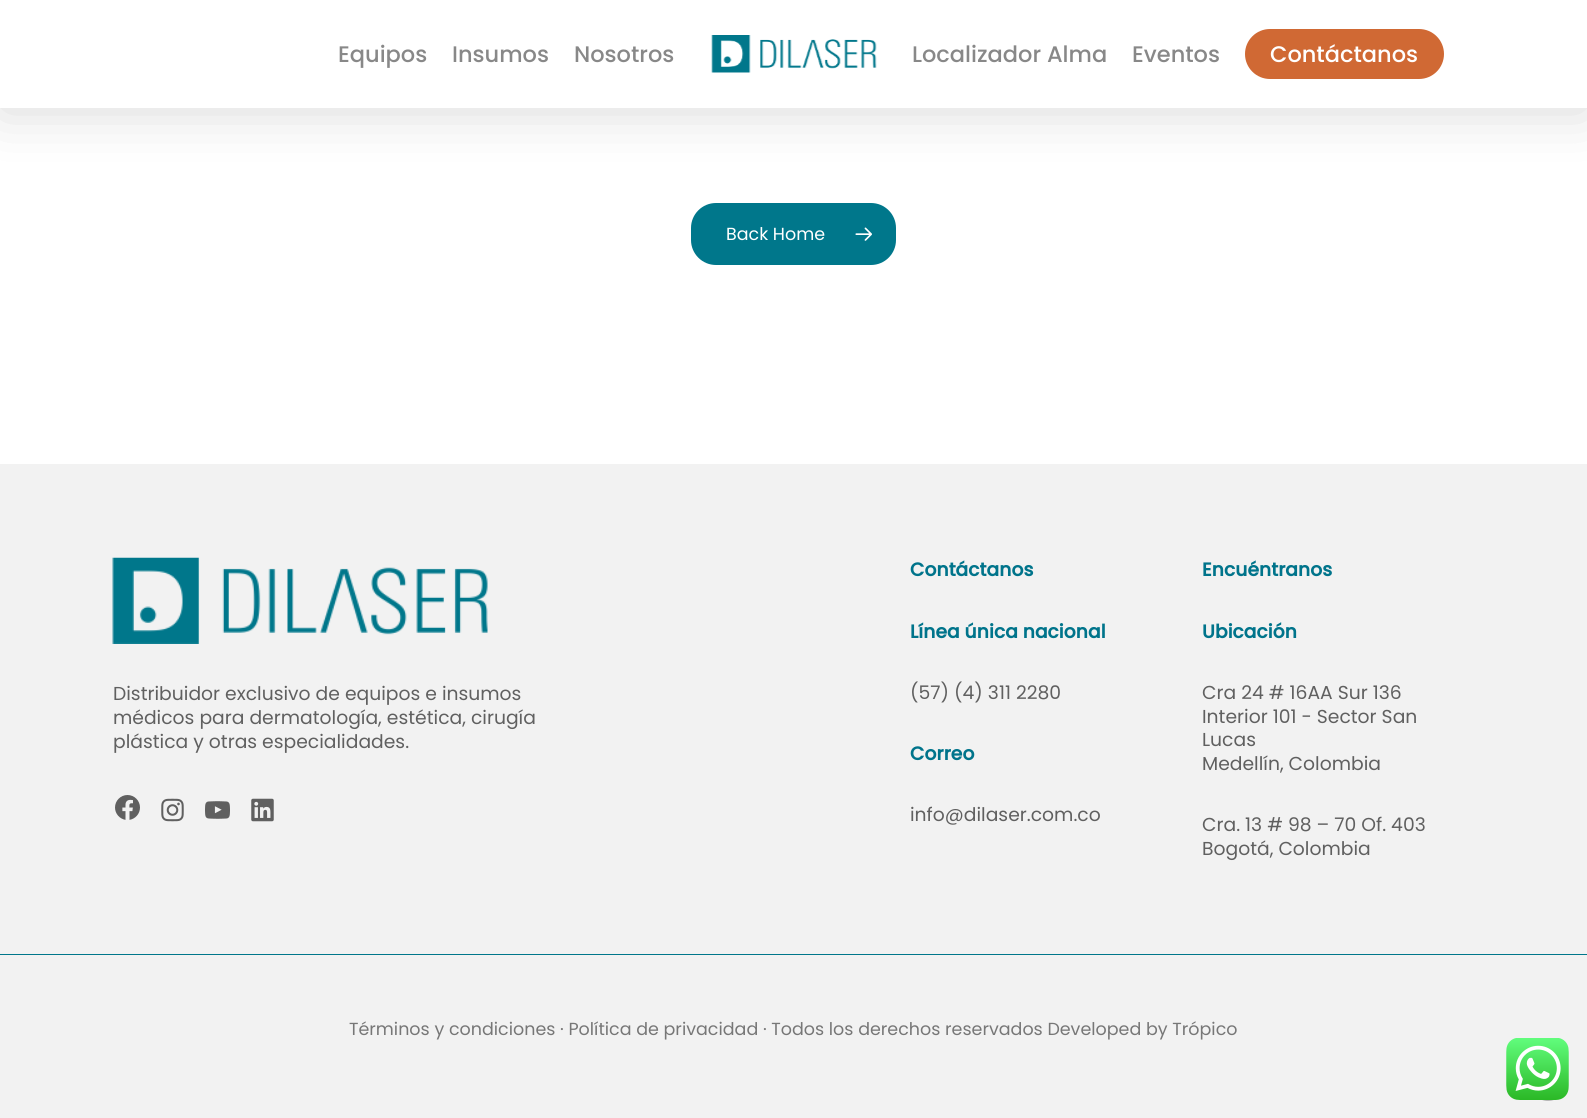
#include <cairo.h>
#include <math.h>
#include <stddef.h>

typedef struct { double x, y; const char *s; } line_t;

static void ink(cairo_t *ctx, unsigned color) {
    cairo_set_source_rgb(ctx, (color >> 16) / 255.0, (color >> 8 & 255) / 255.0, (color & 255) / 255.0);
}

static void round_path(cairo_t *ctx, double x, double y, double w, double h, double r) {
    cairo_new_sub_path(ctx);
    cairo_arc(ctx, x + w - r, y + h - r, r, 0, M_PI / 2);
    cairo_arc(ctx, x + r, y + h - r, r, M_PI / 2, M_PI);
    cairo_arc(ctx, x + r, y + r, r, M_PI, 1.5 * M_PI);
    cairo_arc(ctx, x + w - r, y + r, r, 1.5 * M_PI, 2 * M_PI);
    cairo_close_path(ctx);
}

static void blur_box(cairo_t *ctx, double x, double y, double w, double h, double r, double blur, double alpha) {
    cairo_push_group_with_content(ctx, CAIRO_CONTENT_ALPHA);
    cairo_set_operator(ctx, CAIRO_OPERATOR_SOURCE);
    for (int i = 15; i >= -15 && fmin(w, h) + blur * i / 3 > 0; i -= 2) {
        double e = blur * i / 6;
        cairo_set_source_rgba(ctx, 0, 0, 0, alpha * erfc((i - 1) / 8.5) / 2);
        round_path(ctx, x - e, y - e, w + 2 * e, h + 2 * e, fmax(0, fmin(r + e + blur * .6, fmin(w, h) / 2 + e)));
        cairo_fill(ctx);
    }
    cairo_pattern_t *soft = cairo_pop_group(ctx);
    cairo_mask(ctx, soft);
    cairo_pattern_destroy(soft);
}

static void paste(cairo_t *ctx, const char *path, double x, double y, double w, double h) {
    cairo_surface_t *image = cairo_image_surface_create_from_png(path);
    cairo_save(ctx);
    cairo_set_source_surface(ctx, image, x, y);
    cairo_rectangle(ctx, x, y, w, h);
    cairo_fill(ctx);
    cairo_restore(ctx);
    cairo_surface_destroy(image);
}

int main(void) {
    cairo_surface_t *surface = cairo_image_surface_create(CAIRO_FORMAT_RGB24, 1587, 1118);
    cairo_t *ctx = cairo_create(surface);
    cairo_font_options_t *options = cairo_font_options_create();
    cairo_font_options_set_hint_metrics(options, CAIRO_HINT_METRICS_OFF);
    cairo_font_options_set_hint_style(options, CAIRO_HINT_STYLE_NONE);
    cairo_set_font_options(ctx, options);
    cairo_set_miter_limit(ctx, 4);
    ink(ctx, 0xFFFFFF);
    cairo_paint(ctx);
    ink(ctx, 0x000000);
    blur_box(ctx, 0, 4, 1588, 107, 0, 28, 0.15);
    ink(ctx, 0xFFFFFF);
    cairo_rectangle(ctx, 0, 0, 1587, 108);
    cairo_fill(ctx);
    paste(ctx, "media/1.png", 711, 35, 166, 38);
    cairo_select_font_face(ctx, "Poppins Medium", CAIRO_FONT_SLANT_NORMAL, CAIRO_FONT_WEIGHT_NORMAL);
    cairo_set_font_size(ctx, 22.5);
    ink(ctx, 0x888888);
    {
        static const line_t items[] = {
            {338, 62, "Equipos"},
            {452, 62, "Insumos"},
            {574, 62, "Nosotros"},
            {912, 62, "Localizador Alma"},
            {1132, 62, "Eventos"},
        };
        for (size_t i = 0; i < sizeof items / sizeof *items; i++) {
            cairo_move_to(ctx, items[i].x, items[i].y);
            cairo_show_text(ctx, items[i].s);
        }
    }
    ink(ctx, 0xD06934);
    round_path(ctx, 1245, 29, 199, 50, 25);
    cairo_fill(ctx);
    ink(ctx, 0xFFFFFF);
    cairo_move_to(ctx, 1270, 62);
    cairo_show_text(ctx, "Contáctanos");
    ink(ctx, 0x00778B);
    round_path(ctx, 691, 203, 205, 62, 25);
    cairo_fill(ctx);
    cairo_select_font_face(ctx, "Poppins", CAIRO_FONT_SLANT_NORMAL, CAIRO_FONT_WEIGHT_NORMAL);
    cairo_set_font_size(ctx, 17.5);
    ink(ctx, 0xFFFFFF);
    cairo_move_to(ctx, 726, 240);
    cairo_show_text(ctx, "Back Home");
    paste(ctx, "media/2.png", 855, 227, 17, 14);
    ink(ctx, 0xF2F2F2);
    cairo_rectangle(ctx, 0, 464, 1587, 654);
    cairo_fill(ctx);
    paste(ctx, "media/3.png", 112, 557, 376, 87);
    cairo_set_font_size(ctx, 18.75);
    ink(ctx, 0x606060);
    {
        static const line_t items[] = {
            {113, 700, "Distribuidor exclusivo de equipos e insumos"},
            {113, 724, "médicos para dermatología, estética, cirugía"},
            {113, 748, "plástica y otras especialidades."},
        };
        for (size_t i = 0; i < sizeof items / sizeof *items; i++) {
            cairo_move_to(ctx, items[i].x, items[i].y);
            cairo_show_text(ctx, items[i].s);
        }
    }
    paste(ctx, "media/4.png", 115, 795, 25, 25);
    paste(ctx, "media/5.png", 161, 798, 23, 24);
    paste(ctx, "media/6.png", 205, 801, 25, 18);
    paste(ctx, "media/7.png", 251, 798, 23, 24);
    cairo_select_font_face(ctx, "Poppins", CAIRO_FONT_SLANT_NORMAL, CAIRO_FONT_WEIGHT_BOLD);
    ink(ctx, 0x00748B);
    cairo_move_to(ctx, 910, 576);
    cairo_show_text(ctx, "Contáctanos");
    cairo_move_to(ctx, 910, 638);
    cairo_show_text(ctx, "Línea única nacional");
    cairo_select_font_face(ctx, "Poppins", CAIRO_FONT_SLANT_NORMAL, CAIRO_FONT_WEIGHT_NORMAL);
    ink(ctx, 0x606060);
    cairo_move_to(ctx, 910, 699);
    cairo_show_text(ctx, "(57) (4) 311 2280");
    cairo_select_font_face(ctx, "Poppins", CAIRO_FONT_SLANT_NORMAL, CAIRO_FONT_WEIGHT_BOLD);
    ink(ctx, 0x00748B);
    cairo_move_to(ctx, 910, 760);
    cairo_show_text(ctx, "Correo");
    cairo_select_font_face(ctx, "Poppins", CAIRO_FONT_SLANT_NORMAL, CAIRO_FONT_WEIGHT_NORMAL);
    ink(ctx, 0x606060);
    cairo_move_to(ctx, 910, 821);
    cairo_show_text(ctx, "info@dilaser.com.co");
    cairo_select_font_face(ctx, "Poppins", CAIRO_FONT_SLANT_NORMAL, CAIRO_FONT_WEIGHT_BOLD);
    ink(ctx, 0x00748B);
    cairo_move_to(ctx, 1202, 576);
    cairo_show_text(ctx, "Encuéntranos");
    cairo_move_to(ctx, 1202, 638);
    cairo_show_text(ctx, "Ubicación");
    cairo_select_font_face(ctx, "Poppins", CAIRO_FONT_SLANT_NORMAL, CAIRO_FONT_WEIGHT_NORMAL);
    ink(ctx, 0x606060);
    {
        static const line_t items[] = {
            {1202, 699, "Cra 24 # 16AA Sur 136"},
            {1202, 723, "Interior 101 - Sector San"},
            {1202, 746, "Lucas"},
            {1202, 770, "Medellín, Colombia"},
            {1202, 831, "Cra. 13 # 98 – 70 Of. 403"},
            {1202, 855, "Bogotá, Colombia"},
        };
        for (size_t i = 0; i < sizeof items / sizeof *items; i++) {
            cairo_move_to(ctx, items[i].x, items[i].y);
            cairo_show_text(ctx, items[i].s);
        }
    }
    ink(ctx, 0x00778B);
    cairo_rectangle(ctx, 0, 954, 1587, 1);
    cairo_fill(ctx);
    cairo_set_font_size(ctx, 17.5);
    ink(ctx, 0x777777);
    cairo_move_to(ctx, 349, 1035);
    cairo_show_text(ctx, "Términos y condiciones · Política de privacidad · Todos los derechos reservados Developed by Trópico");
    ink(ctx, 0xB6B6B6);
    cairo_new_path(ctx);
    cairo_arc(ctx, 1548, 1083, 18, 0, 2 * M_PI);
    cairo_fill(ctx);
    paste(ctx, "media/8.png", 1506, 1038, 63, 62);
    cairo_surface_write_to_png(surface, "image.png");
    cairo_font_options_destroy(options);
    cairo_destroy(ctx);
    cairo_surface_destroy(surface);
    return 0;
}
